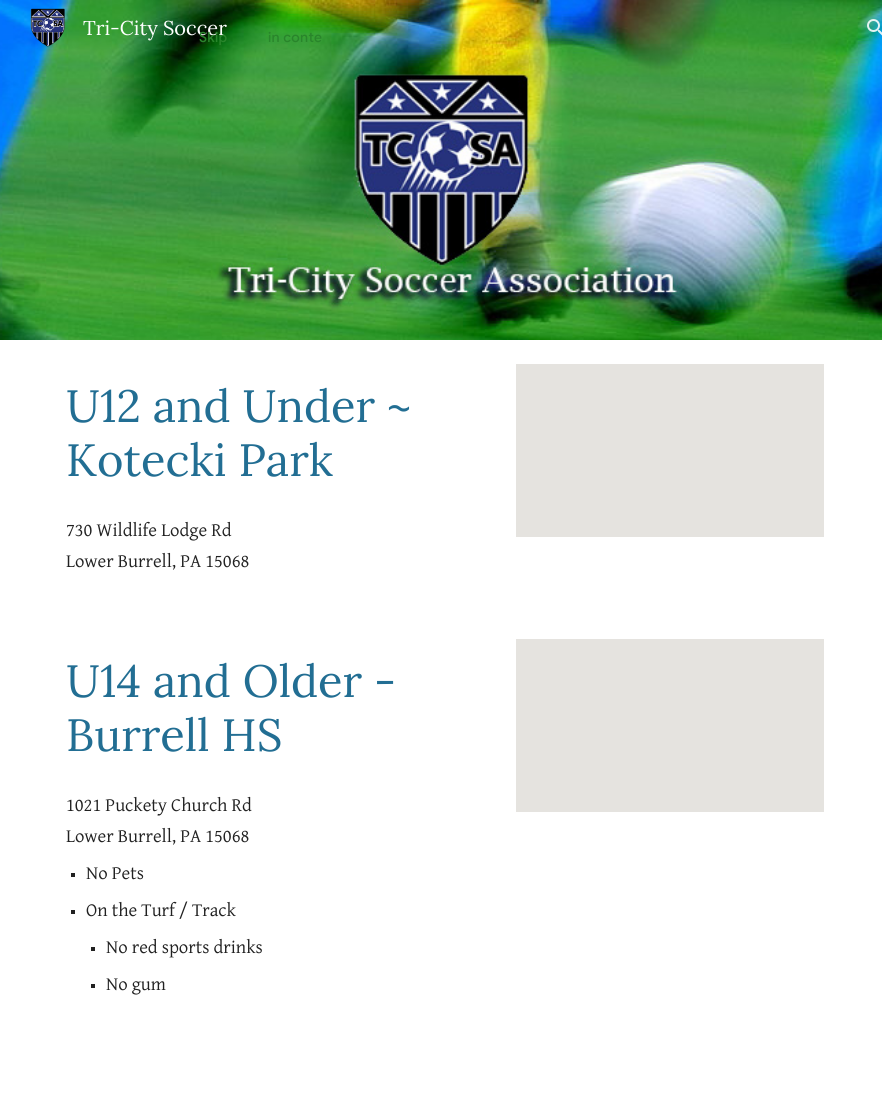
#include <cairo.h>
#include <math.h>
#include <stddef.h>


static void ink(cairo_t *ctx, unsigned color) {
    cairo_set_source_rgb(ctx, (color >> 16) / 255.0, (color >> 8 & 255) / 255.0, (color & 255) / 255.0);
}

static void write_spaced(cairo_t *ctx, double x, double y, const char *s, double letter, double word) {
    cairo_move_to(ctx, x, y);
    while (*s) {
        char ch[5] = {0};
        int n = 0;
        do ch[n++] = *s++; while ((*s & 0xC0) == 0x80);
        cairo_show_text(ctx, ch);
        cairo_rel_move_to(ctx, letter + word * (*ch == ' '), 0);
    }
}

static void paste(cairo_t *ctx, const char *path, double x, double y, double w, double h) {
    cairo_surface_t *image = cairo_image_surface_create_from_png(path);
    cairo_save(ctx);
    cairo_set_source_surface(ctx, image, x, y);
    cairo_rectangle(ctx, x, y, w, h);
    cairo_fill(ctx);
    cairo_restore(ctx);
    cairo_surface_destroy(image);
}

int main(void) {
    cairo_surface_t *surface = cairo_image_surface_create(CAIRO_FORMAT_RGB24, 882, 1119);
    cairo_t *ctx = cairo_create(surface);
    cairo_font_options_t *options = cairo_font_options_create();
    cairo_font_options_set_hint_metrics(options, CAIRO_HINT_METRICS_OFF);
    cairo_font_options_set_hint_style(options, CAIRO_HINT_STYLE_NONE);
    cairo_set_font_options(ctx, options);
    cairo_set_miter_limit(ctx, 4);
    ink(ctx, 0xFFFFFF);
    cairo_paint(ctx);
    paste(ctx, "media/3.png", 0, 0, 882, 340);
    paste(ctx, "media/1.png", 30, 8, 35, 39);
    cairo_select_font_face(ctx, "Lora", CAIRO_FONT_SLANT_NORMAL, CAIRO_FONT_WEIGHT_NORMAL);
    cairo_set_font_size(ctx, 20);
    ink(ctx, 0xFFFFFF);
    cairo_move_to(ctx, 83, 35);
    cairo_show_text(ctx, "Tri-City Soccer");
    paste(ctx, "media/2.png", 867, 19, 15, 17);
    cairo_set_font_size(ctx, 45.25);
    ink(ctx, 0x226E93);
    cairo_move_to(ctx, 66, 422);
    cairo_show_text(ctx, "U12 and Under ~");
    cairo_move_to(ctx, 66, 476);
    cairo_show_text(ctx, "Kotecki Park");
    cairo_select_font_face(ctx, "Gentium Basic", CAIRO_FONT_SLANT_NORMAL, CAIRO_FONT_WEIGHT_NORMAL);
    cairo_set_font_size(ctx, 18.75);
    ink(ctx, 0x212121);
    cairo_move_to(ctx, 66, 536);
    cairo_show_text(ctx, "730 Wildlife Lodge Rd");
    cairo_move_to(ctx, 66, 567);
    cairo_show_text(ctx, "Lower Burrell, PA 15068");
    ink(ctx, 0xE5E3DF);
    cairo_rectangle(ctx, 516, 364, 308, 173);
    cairo_fill(ctx);
    cairo_select_font_face(ctx, "Lora", CAIRO_FONT_SLANT_NORMAL, CAIRO_FONT_WEIGHT_NORMAL);
    cairo_set_font_size(ctx, 45.25);
    ink(ctx, 0x226E93);
    cairo_move_to(ctx, 66, 697);
    cairo_show_text(ctx, "U14 and Older -");
    cairo_move_to(ctx, 66, 751);
    cairo_show_text(ctx, "Burrell HS");
    cairo_select_font_face(ctx, "Gentium Basic", CAIRO_FONT_SLANT_NORMAL, CAIRO_FONT_WEIGHT_NORMAL);
    cairo_set_font_size(ctx, 18.75);
    ink(ctx, 0x212121);
    cairo_move_to(ctx, 66, 811);
    cairo_show_text(ctx, "1021 Puckety Church Rd");
    cairo_move_to(ctx, 66, 842);
    cairo_show_text(ctx, "Lower Burrell, PA 15068");
    cairo_rectangle(ctx, 71, 873, 4, 4);
    cairo_fill(ctx);
    cairo_move_to(ctx, 86, 879);
    cairo_show_text(ctx, "No Pets");
    cairo_rectangle(ctx, 71, 910, 4, 4);
    cairo_fill(ctx);
    cairo_move_to(ctx, 86, 916);
    cairo_show_text(ctx, "On the Turf / Track");
    cairo_rectangle(ctx, 91, 947, 4, 4);
    cairo_fill(ctx);
    cairo_move_to(ctx, 106, 953);
    cairo_show_text(ctx, "No red sports drinks");
    cairo_rectangle(ctx, 91, 984, 4, 4);
    cairo_fill(ctx);
    cairo_move_to(ctx, 106, 990);
    cairo_show_text(ctx, "No gum");
    ink(ctx, 0xE5E3DF);
    cairo_rectangle(ctx, 516, 639, 308, 173);
    cairo_fill(ctx);
    cairo_select_font_face(ctx, "Google Sans Medium", CAIRO_FONT_SLANT_NORMAL, CAIRO_FONT_WEIGHT_NORMAL);
    cairo_set_font_size(ctx, 14);
    ink(ctx, 0x29852B);
    write_spaced(ctx, 199, 42, "Skip", 0.25, 0);
    write_spaced(ctx, 268, 42, "in conte", 0.25, 0);
    cairo_surface_write_to_png(surface, "image.png");
    cairo_font_options_destroy(options);
    cairo_destroy(ctx);
    cairo_surface_destroy(surface);
    return 0;
}
